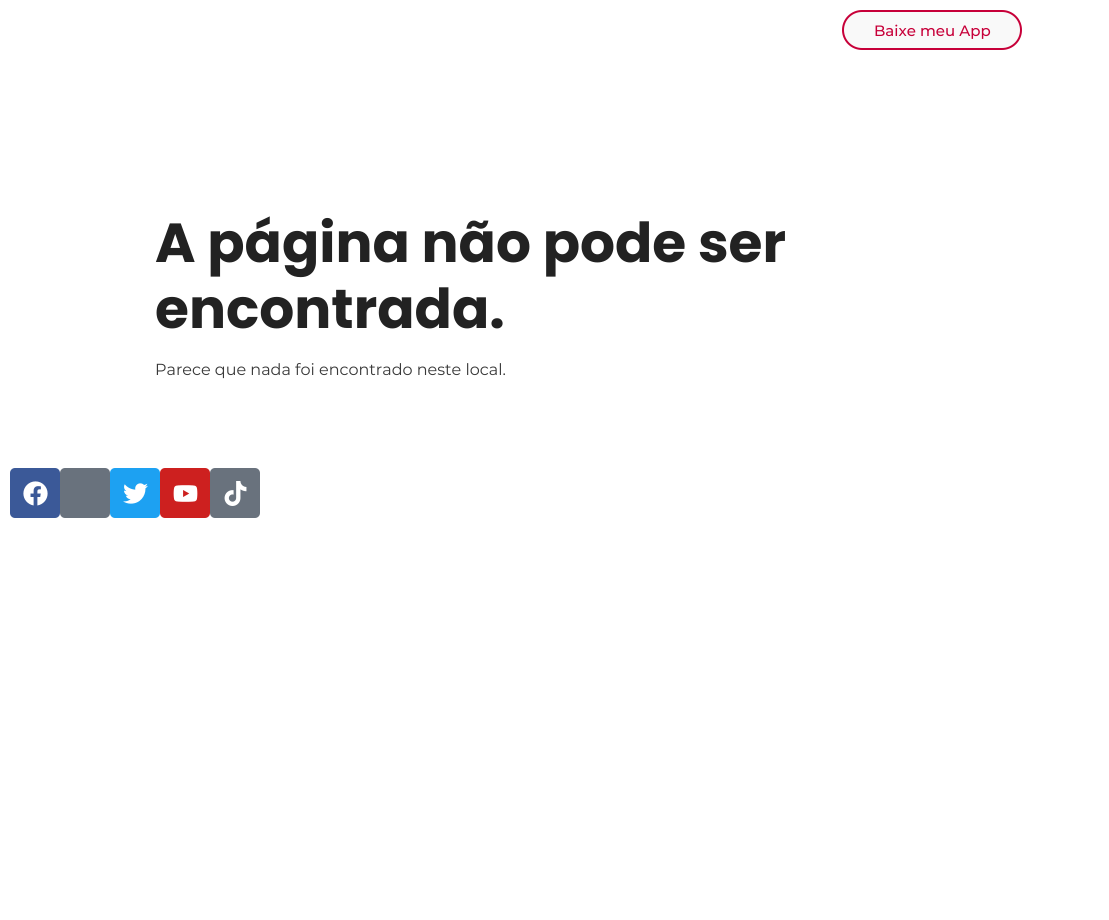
#include <cairo.h>
#include <math.h>
#include <stddef.h>


static void ink(cairo_t *ctx, unsigned color) {
    cairo_set_source_rgb(ctx, (color >> 16) / 255.0, (color >> 8 & 255) / 255.0, (color & 255) / 255.0);
}

static void round_path(cairo_t *ctx, double x, double y, double w, double h, double r) {
    cairo_new_sub_path(ctx);
    cairo_arc(ctx, x + w - r, y + h - r, r, 0, M_PI / 2);
    cairo_arc(ctx, x + r, y + h - r, r, M_PI / 2, M_PI);
    cairo_arc(ctx, x + r, y + r, r, M_PI, 1.5 * M_PI);
    cairo_arc(ctx, x + w - r, y + r, r, 1.5 * M_PI, 2 * M_PI);
    cairo_close_path(ctx);
}

static void paste(cairo_t *ctx, const char *path, double x, double y, double w, double h) {
    cairo_surface_t *image = cairo_image_surface_create_from_png(path);
    cairo_save(ctx);
    cairo_set_source_surface(ctx, image, x, y);
    cairo_rectangle(ctx, x, y, w, h);
    cairo_fill(ctx);
    cairo_restore(ctx);
    cairo_surface_destroy(image);
}

int main(void) {
    cairo_surface_t *surface = cairo_image_surface_create(CAIRO_FORMAT_RGB24, 1109, 920);
    cairo_t *ctx = cairo_create(surface);
    cairo_font_options_t *options = cairo_font_options_create();
    cairo_font_options_set_hint_metrics(options, CAIRO_HINT_METRICS_OFF);
    cairo_font_options_set_hint_style(options, CAIRO_HINT_STYLE_NONE);
    cairo_set_font_options(ctx, options);
    cairo_set_miter_limit(ctx, 4);
    ink(ctx, 0xFFFFFF);
    cairo_paint(ctx);
    ink(ctx, 0xF9F9F9);
    round_path(ctx, 843, 11, 178, 38, 19);
    cairo_fill_preserve(ctx);
    ink(ctx, 0xC70039);
    cairo_stroke(ctx);
    cairo_select_font_face(ctx, "Montserrat Medium", CAIRO_FONT_SLANT_NORMAL, CAIRO_FONT_WEIGHT_NORMAL);
    cairo_set_font_size(ctx, 15);
    cairo_move_to(ctx, 874, 36);
    cairo_show_text(ctx, "Baixe meu App");
    cairo_select_font_face(ctx, "Poppins", CAIRO_FONT_SLANT_NORMAL, CAIRO_FONT_WEIGHT_BOLD);
    cairo_set_font_size(ctx, 55);
    ink(ctx, 0x222222);
    cairo_move_to(ctx, 155, 262);
    cairo_show_text(ctx, "A página não pode ser");
    cairo_move_to(ctx, 155, 328);
    cairo_show_text(ctx, "encontrada.");
    cairo_select_font_face(ctx, "Montserrat", CAIRO_FONT_SLANT_NORMAL, CAIRO_FONT_WEIGHT_NORMAL);
    cairo_set_font_size(ctx, 16);
    ink(ctx, 0x383838);
    cairo_move_to(ctx, 155, 375);
    cairo_show_text(ctx, "Parece que nada foi encontrado neste local.");
    ink(ctx, 0x3B5998);
    round_path(ctx, 10, 468, 50, 50, 5);
    cairo_fill(ctx);
    paste(ctx, "media/1.png", 23, 481, 25, 25);
    ink(ctx, 0x69727D);
    round_path(ctx, 60, 468, 50, 50, 5);
    cairo_fill(ctx);
    ink(ctx, 0x1DA1F2);
    round_path(ctx, 110, 468, 50, 50, 5);
    cairo_fill(ctx);
    paste(ctx, "media/2.png", 123, 483, 25, 21);
    ink(ctx, 0xCD201F);
    round_path(ctx, 160, 468, 50, 50, 5);
    cairo_fill(ctx);
    paste(ctx, "media/3.png", 173, 485, 25, 17);
    ink(ctx, 0x69727D);
    round_path(ctx, 210, 468, 50, 50, 5);
    cairo_fill(ctx);
    paste(ctx, "media/4.png", 224, 481, 23, 25);
    cairo_surface_write_to_png(surface, "image.png");
    cairo_font_options_destroy(options);
    cairo_destroy(ctx);
    cairo_surface_destroy(surface);
    return 0;
}
